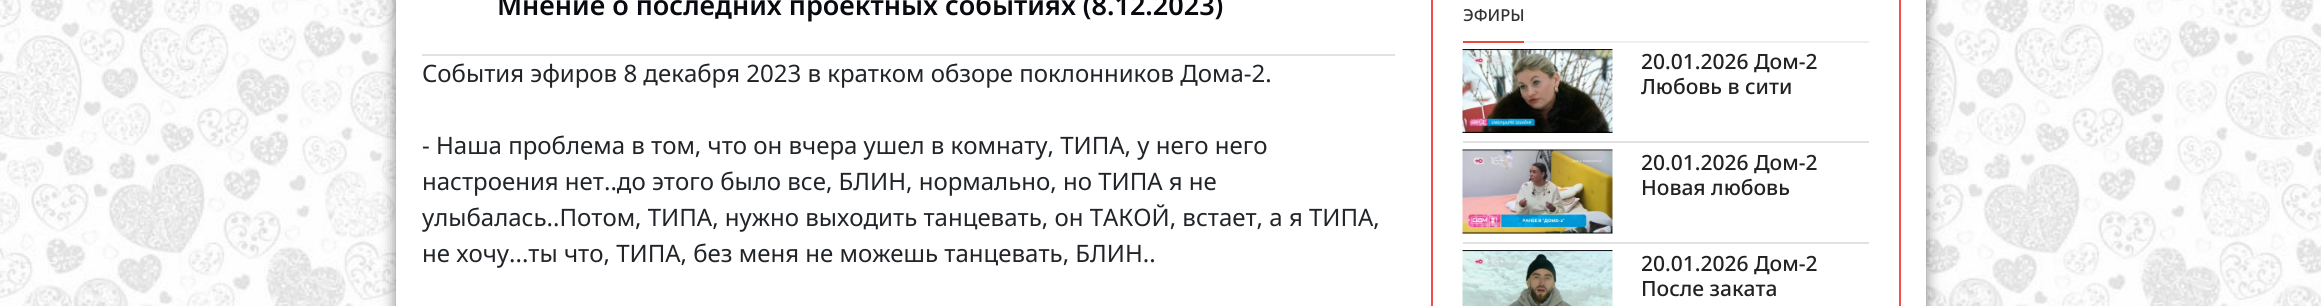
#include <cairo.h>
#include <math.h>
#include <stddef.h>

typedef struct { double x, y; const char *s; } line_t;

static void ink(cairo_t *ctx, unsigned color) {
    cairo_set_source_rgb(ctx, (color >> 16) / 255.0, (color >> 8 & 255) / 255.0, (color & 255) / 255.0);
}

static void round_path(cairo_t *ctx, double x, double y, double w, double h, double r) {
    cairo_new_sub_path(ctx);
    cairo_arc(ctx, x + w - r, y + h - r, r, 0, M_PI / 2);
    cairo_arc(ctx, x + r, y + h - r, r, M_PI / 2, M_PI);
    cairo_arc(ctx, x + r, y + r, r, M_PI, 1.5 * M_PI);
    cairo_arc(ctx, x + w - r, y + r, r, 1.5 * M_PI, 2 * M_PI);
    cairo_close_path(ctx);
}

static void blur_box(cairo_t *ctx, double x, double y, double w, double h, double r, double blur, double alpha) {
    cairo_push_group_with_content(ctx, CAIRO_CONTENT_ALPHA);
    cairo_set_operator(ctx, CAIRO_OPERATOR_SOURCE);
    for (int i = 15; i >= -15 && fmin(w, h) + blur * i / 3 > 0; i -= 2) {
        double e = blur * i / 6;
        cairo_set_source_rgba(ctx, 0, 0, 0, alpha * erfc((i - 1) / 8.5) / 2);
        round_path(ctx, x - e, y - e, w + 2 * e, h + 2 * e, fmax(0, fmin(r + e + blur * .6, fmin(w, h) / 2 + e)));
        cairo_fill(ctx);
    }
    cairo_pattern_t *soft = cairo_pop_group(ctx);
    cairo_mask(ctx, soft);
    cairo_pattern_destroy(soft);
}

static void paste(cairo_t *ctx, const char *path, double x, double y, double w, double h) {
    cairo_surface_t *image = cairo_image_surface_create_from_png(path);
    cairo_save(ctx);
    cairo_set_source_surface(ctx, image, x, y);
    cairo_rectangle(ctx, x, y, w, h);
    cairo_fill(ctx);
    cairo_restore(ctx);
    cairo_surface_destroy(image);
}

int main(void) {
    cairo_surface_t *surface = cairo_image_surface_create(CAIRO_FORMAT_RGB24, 2321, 306);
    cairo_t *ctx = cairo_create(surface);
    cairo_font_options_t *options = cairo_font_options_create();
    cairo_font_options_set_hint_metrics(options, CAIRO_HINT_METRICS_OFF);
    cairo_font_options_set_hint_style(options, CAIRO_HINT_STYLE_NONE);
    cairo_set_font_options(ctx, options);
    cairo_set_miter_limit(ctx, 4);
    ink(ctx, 0xFFFFFF);
    cairo_paint(ctx);
    paste(ctx, "media/1.png", 0, 0, 2321, 306);
    ink(ctx, 0x000000);
    blur_box(ctx, 396, -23, 1530, 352, 0, 7.5, 0.5);
    ink(ctx, 0xFFFFFF);
    cairo_rectangle(ctx, 396, 0, 1530, 306);
    cairo_fill(ctx);
    cairo_select_font_face(ctx, "Noto Sans SemiBold", CAIRO_FONT_SLANT_NORMAL, CAIRO_FONT_WEIGHT_NORMAL);
    cairo_set_font_size(ctx, 27);
    ink(ctx, 0x090A0F);
    cairo_move_to(ctx, 497, 15);
    cairo_show_text(ctx, "Мнение о последних проектных событиях (8.12.2023)");
    ink(ctx, 0xE1E1E1);
    cairo_rectangle(ctx, 422, 54, 973, 2);
    cairo_fill(ctx);
    cairo_select_font_face(ctx, "Noto Sans", CAIRO_FONT_SLANT_NORMAL, CAIRO_FONT_WEIGHT_NORMAL);
    cairo_set_font_size(ctx, 24);
    ink(ctx, 0x212529);
    {
        static const line_t items[] = {
            {422, 82, "События эфиров 8 декабря 2023 в кратком обзоре поклонников Дома-2."},
            {422, 154, "- Наша проблема в том, что он вчера ушел в комнату, ТИПА, у него него"},
            {422, 190, "настроения нет..до этого было все, БЛИН, нормально, но ТИПА я не"},
            {422, 226, "улыбалась..Потом, ТИПА, нужно выходить танцевать, он ТАКОЙ, встает, а я ТИПА,"},
            {422, 262, "не хочу...ты что, ТИПА, без меня не можешь танцевать, БЛИН.."},
        };
        for (size_t i = 0; i < sizeof items / sizeof *items; i++) {
            cairo_move_to(ctx, items[i].x, items[i].y);
            cairo_show_text(ctx, items[i].s);
        }
    }
    cairo_rectangle(ctx, 1432, -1, 468, 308);
    ink(ctx, 0xF54D4B);
    cairo_stroke(ctx);
    ink(ctx, 0xECF0F1);
    cairo_rectangle(ctx, 1524, 41, 345, 2);
    cairo_fill(ctx);
    ink(ctx, 0xE74C3C);
    cairo_rectangle(ctx, 1463, 41, 61, 2);
    cairo_fill(ctx);
    cairo_select_font_face(ctx, "Noto Sans Medium", CAIRO_FONT_SLANT_NORMAL, CAIRO_FONT_WEIGHT_NORMAL);
    cairo_set_font_size(ctx, 16.5);
    ink(ctx, 0x333333);
    cairo_move_to(ctx, 1463, 21);
    cairo_show_text(ctx, "ЭФИРЫ");
    ink(ctx, 0xE1E1E1);
    cairo_rectangle(ctx, 1463, 141, 406, 2);
    cairo_fill(ctx);
    paste(ctx, "media/2.png", 1462, 49, 151, 84);
    cairo_set_font_size(ctx, 21);
    ink(ctx, 0x222222);
    cairo_move_to(ctx, 1641, 69);
    cairo_show_text(ctx, "20.01.2026 Дом-2");
    cairo_move_to(ctx, 1641, 94);
    cairo_show_text(ctx, "Любовь в сити");
    ink(ctx, 0xE1E1E1);
    cairo_rectangle(ctx, 1463, 242, 406, 2);
    cairo_fill(ctx);
    paste(ctx, "media/3.png", 1462, 149, 151, 85);
    ink(ctx, 0x222222);
    cairo_move_to(ctx, 1641, 170);
    cairo_show_text(ctx, "20.01.2026 Дом-2");
    cairo_move_to(ctx, 1641, 195);
    cairo_show_text(ctx, "Новая любовь");
    paste(ctx, "media/4.png", 1462, 250, 151, 56);
    cairo_move_to(ctx, 1641, 271);
    cairo_show_text(ctx, "20.01.2026 Дом-2");
    cairo_move_to(ctx, 1641, 296);
    cairo_show_text(ctx, "После заката");
    cairo_surface_write_to_png(surface, "image.png");
    cairo_font_options_destroy(options);
    cairo_destroy(ctx);
    cairo_surface_destroy(surface);
    return 0;
}
